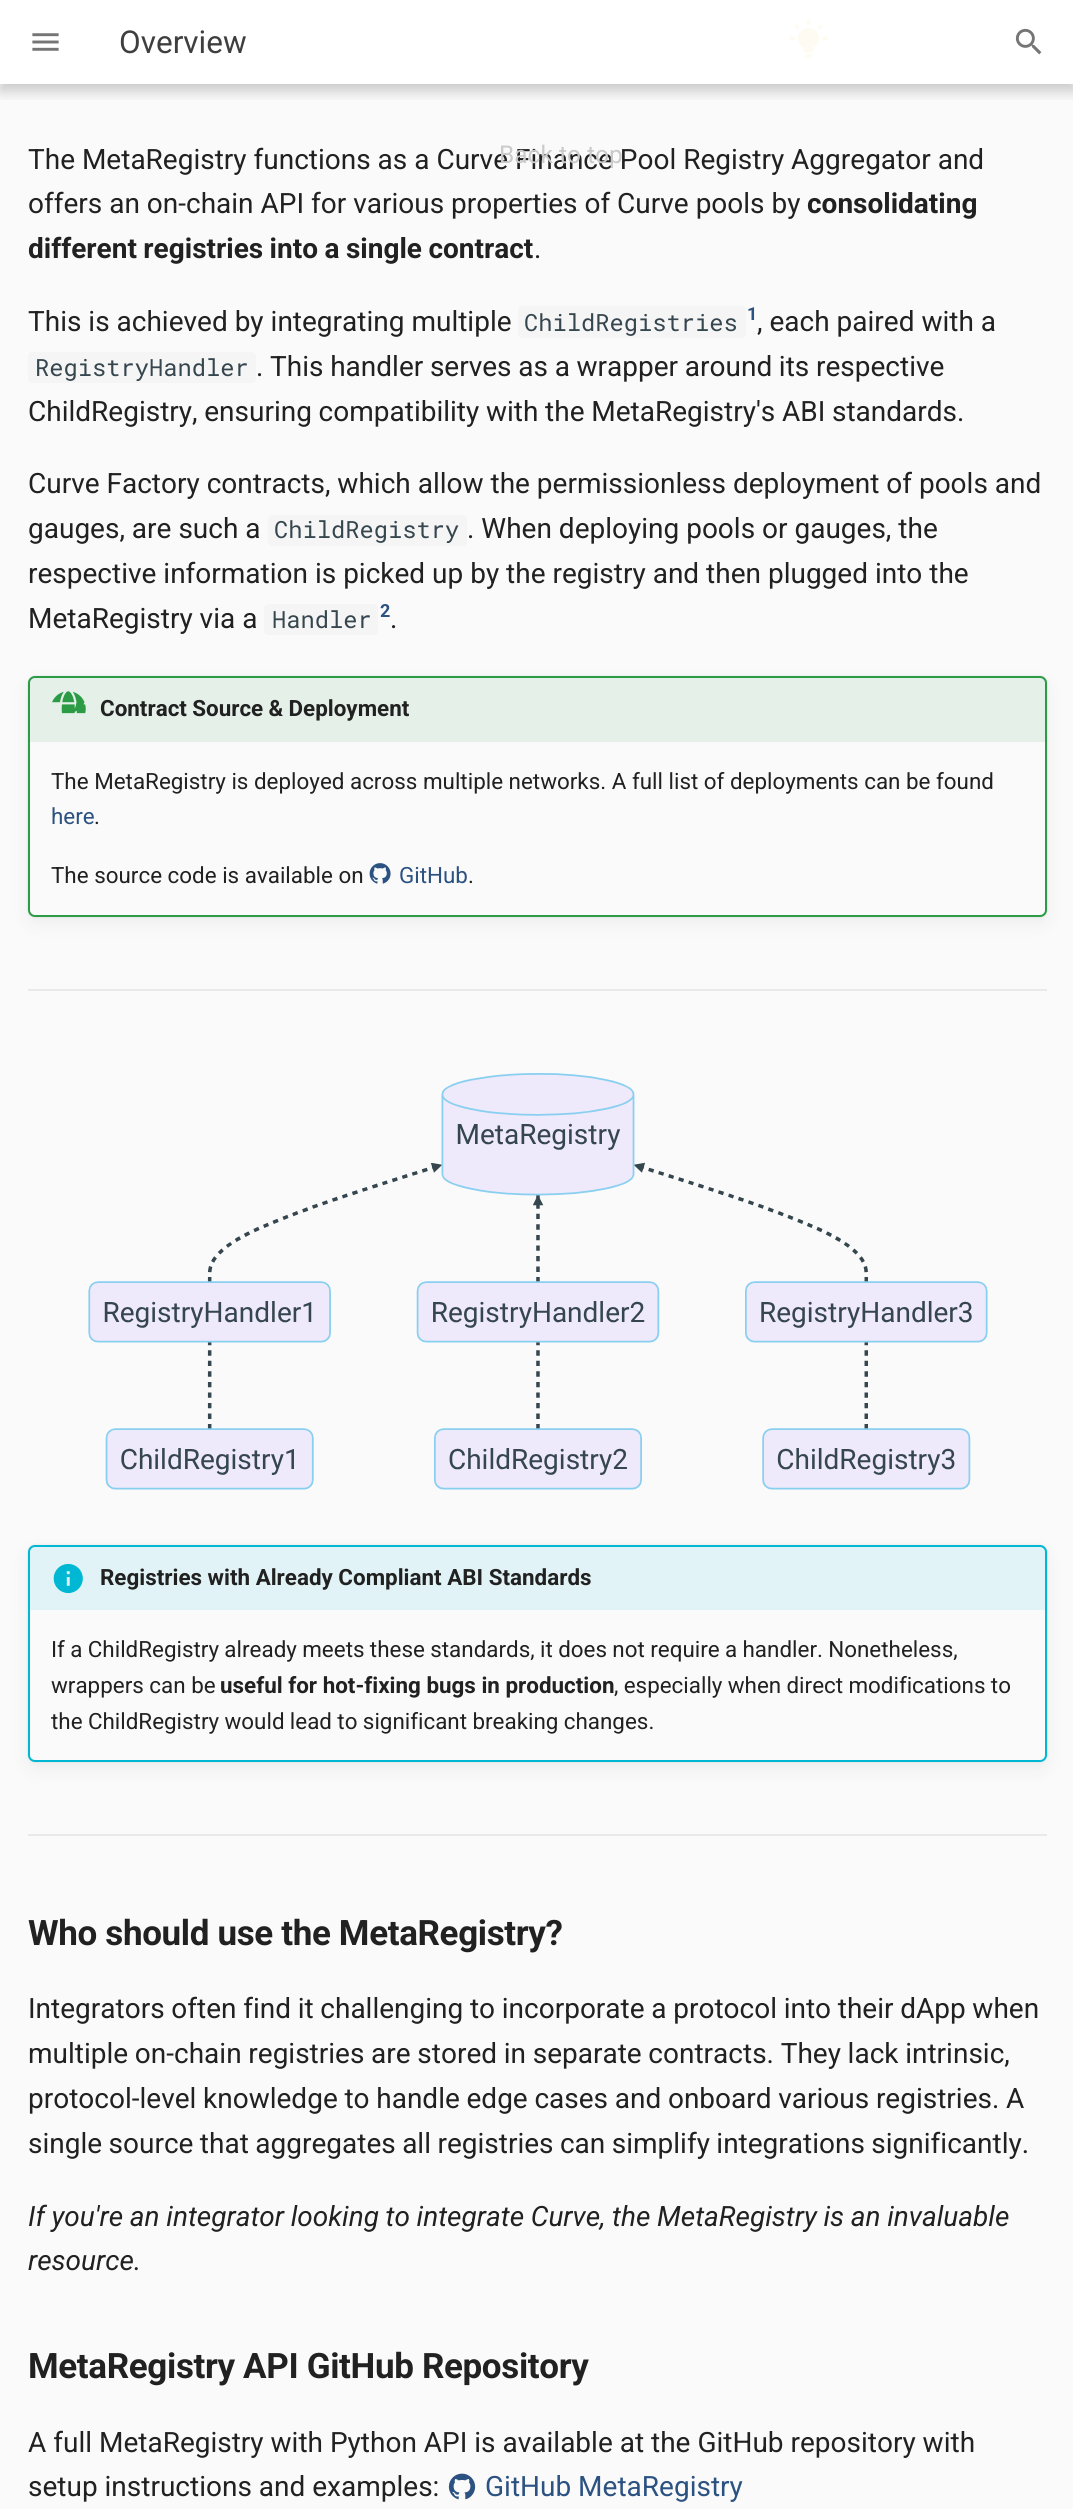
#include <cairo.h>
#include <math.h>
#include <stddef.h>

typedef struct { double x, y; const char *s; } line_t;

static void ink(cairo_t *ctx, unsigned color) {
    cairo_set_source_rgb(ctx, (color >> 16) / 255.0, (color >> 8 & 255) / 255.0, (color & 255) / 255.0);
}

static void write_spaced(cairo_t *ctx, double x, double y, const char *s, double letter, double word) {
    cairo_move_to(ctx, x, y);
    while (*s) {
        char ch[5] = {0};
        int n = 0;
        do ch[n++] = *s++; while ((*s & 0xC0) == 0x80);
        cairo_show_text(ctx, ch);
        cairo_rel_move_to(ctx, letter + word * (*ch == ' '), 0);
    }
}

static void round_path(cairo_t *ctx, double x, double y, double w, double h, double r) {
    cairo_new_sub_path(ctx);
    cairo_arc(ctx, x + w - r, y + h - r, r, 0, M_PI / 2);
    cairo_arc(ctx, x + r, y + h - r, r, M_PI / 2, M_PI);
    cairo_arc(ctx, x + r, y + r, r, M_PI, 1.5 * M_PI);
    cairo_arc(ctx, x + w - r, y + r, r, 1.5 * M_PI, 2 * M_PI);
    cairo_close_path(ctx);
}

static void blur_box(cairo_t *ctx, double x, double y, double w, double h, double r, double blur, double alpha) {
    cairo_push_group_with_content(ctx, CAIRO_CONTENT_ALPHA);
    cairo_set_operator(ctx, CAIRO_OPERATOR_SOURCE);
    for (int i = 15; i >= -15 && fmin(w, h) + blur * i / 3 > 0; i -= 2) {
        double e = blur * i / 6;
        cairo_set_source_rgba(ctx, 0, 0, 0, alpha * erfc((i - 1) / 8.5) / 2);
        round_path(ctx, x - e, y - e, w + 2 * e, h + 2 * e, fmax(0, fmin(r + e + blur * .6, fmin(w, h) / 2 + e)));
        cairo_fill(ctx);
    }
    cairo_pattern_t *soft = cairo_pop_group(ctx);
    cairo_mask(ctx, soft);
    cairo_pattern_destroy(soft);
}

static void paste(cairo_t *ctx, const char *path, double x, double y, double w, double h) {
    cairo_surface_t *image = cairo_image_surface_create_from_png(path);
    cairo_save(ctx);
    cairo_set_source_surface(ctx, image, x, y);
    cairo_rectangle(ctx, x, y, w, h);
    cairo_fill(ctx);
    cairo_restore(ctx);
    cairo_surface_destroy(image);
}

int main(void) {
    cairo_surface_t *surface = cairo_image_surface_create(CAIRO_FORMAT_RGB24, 1073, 2509);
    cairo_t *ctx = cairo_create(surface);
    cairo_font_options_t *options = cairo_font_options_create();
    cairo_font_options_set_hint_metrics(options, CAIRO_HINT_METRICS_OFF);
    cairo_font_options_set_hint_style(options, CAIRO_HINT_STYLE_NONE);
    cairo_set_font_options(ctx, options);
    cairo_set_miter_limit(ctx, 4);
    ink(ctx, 0xFAFAFA);
    cairo_paint(ctx);
    ink(ctx, 0xFFFFFF);
    cairo_rectangle(ctx, 0, 0, 1073, 84);
    cairo_fill(ctx);
    paste(ctx, "media/3.png", 789, 19, 39, 39);
    cairo_save(ctx);
    cairo_rectangle(ctx, 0, 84, 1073, 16);
    cairo_clip(ctx);
    ink(ctx, 0x000000);
    blur_box(ctx, 0, 7, 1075, 84, 0, 7, 0.2);
    cairo_restore(ctx);
    paste(ctx, "media/1.png", 32, 33, 27, 18);
    cairo_select_font_face(ctx, "Roboto", CAIRO_FONT_SLANT_NORMAL, CAIRO_FONT_WEIGHT_NORMAL);
    cairo_set_font_size(ctx, 31.5);
    ink(ctx, 0x3F3F3F);
    cairo_move_to(ctx, 119, 53);
    cairo_show_text(ctx, "Overview");
    paste(ctx, "media/2.png", 1015, 28, 27, 27);
    cairo_set_font_size(ctx, 28);
    ink(ctx, 0x212121);
    cairo_move_to(ctx, 28, 169);
    cairo_show_text(ctx, "The MetaRegistry functions as a Curve Finance Pool Registry Aggregator and");
    cairo_set_font_size(ctx, 24.5);
    ink(ctx, 0xCACACA);
    cairo_move_to(ctx, 499, 163);
    cairo_show_text(ctx, "Back to top");
    cairo_set_font_size(ctx, 28);
    ink(ctx, 0x212121);
    cairo_move_to(ctx, 28, 213);
    cairo_show_text(ctx, "offers an on-chain API for various properties of Curve pools by");
    cairo_select_font_face(ctx, "Roboto", CAIRO_FONT_SLANT_NORMAL, CAIRO_FONT_WEIGHT_BOLD);
    cairo_move_to(ctx, 807, 213);
    cairo_show_text(ctx, "consolidating");
    write_spaced(ctx, 28, 258, "different registries into a single contract", 0, -0.5);
    cairo_select_font_face(ctx, "Roboto", CAIRO_FONT_SLANT_NORMAL, CAIRO_FONT_WEIGHT_NORMAL);
    cairo_move_to(ctx, 534, 258);
    cairo_show_text(ctx, ".");
    cairo_move_to(ctx, 28, 331);
    cairo_show_text(ctx, "This is achieved by integrating multiple");
    ink(ctx, 0xF5F5F5);
    round_path(ctx, 518, 306, 228, 32, 4);
    cairo_fill(ctx);
    cairo_select_font_face(ctx, "Roboto Mono", CAIRO_FONT_SLANT_NORMAL, CAIRO_FONT_WEIGHT_NORMAL);
    cairo_set_font_size(ctx, 23.75);
    ink(ctx, 0x36464E);
    cairo_move_to(ctx, 524, 331);
    cairo_show_text(ctx, "ChildRegistries");
    cairo_select_font_face(ctx, "Roboto", CAIRO_FONT_SLANT_NORMAL, CAIRO_FONT_WEIGHT_BOLD);
    cairo_set_font_size(ctx, 18);
    ink(ctx, 0x2C5282);
    cairo_move_to(ctx, 747, 320);
    cairo_show_text(ctx, "1");
    cairo_select_font_face(ctx, "Roboto", CAIRO_FONT_SLANT_NORMAL, CAIRO_FONT_WEIGHT_NORMAL);
    cairo_set_font_size(ctx, 28);
    ink(ctx, 0x212121);
    cairo_move_to(ctx, 757, 331);
    cairo_show_text(ctx, ", each paired with a");
    ink(ctx, 0xF5F5F5);
    round_path(ctx, 28, 352, 228, 31, 4);
    cairo_fill(ctx);
    cairo_select_font_face(ctx, "Roboto Mono", CAIRO_FONT_SLANT_NORMAL, CAIRO_FONT_WEIGHT_NORMAL);
    cairo_set_font_size(ctx, 23.75);
    ink(ctx, 0x36464E);
    cairo_move_to(ctx, 35, 376);
    cairo_show_text(ctx, "RegistryHandler");
    cairo_select_font_face(ctx, "Roboto", CAIRO_FONT_SLANT_NORMAL, CAIRO_FONT_WEIGHT_NORMAL);
    cairo_set_font_size(ctx, 28);
    ink(ctx, 0x212121);
    write_spaced(ctx, 256, 376, ". This handler serves as a wrapper around its respective", 0, -0.25);
    write_spaced(ctx, 28, 421, "ChildRegistry, ensuring compatibility with the MetaRegistry's ABI standards.", 0, -0.25);
    cairo_move_to(ctx, 28, 493);
    cairo_show_text(ctx, "Curve Factory contracts, which allow the permissionless deployment of pools and");
    cairo_move_to(ctx, 28, 538);
    cairo_show_text(ctx, "gauges, are such a");
    ink(ctx, 0xF5F5F5);
    round_path(ctx, 268, 515, 199, 31, 4);
    cairo_fill(ctx);
    cairo_select_font_face(ctx, "Roboto Mono", CAIRO_FONT_SLANT_NORMAL, CAIRO_FONT_WEIGHT_NORMAL);
    cairo_set_font_size(ctx, 23.75);
    ink(ctx, 0x36464E);
    cairo_move_to(ctx, 274, 538);
    cairo_show_text(ctx, "ChildRegistry");
    cairo_select_font_face(ctx, "Roboto", CAIRO_FONT_SLANT_NORMAL, CAIRO_FONT_WEIGHT_NORMAL);
    cairo_set_font_size(ctx, 28);
    ink(ctx, 0x212121);
    {
        static const line_t items[] = {
            {467, 538, ". When deploying pools or gauges, the"},
            {28, 583, "respective information is picked up by the registry and then plugged into the"},
            {28, 628, "MetaRegistry via a"},
        };
        for (size_t i = 0; i < sizeof items / sizeof *items; i++) {
            cairo_move_to(ctx, items[i].x, items[i].y);
            cairo_show_text(ctx, items[i].s);
        }
    }
    ink(ctx, 0xF5F5F5);
    round_path(ctx, 264, 604, 114, 31, 4);
    cairo_fill(ctx);
    cairo_select_font_face(ctx, "Roboto Mono", CAIRO_FONT_SLANT_NORMAL, CAIRO_FONT_WEIGHT_NORMAL);
    cairo_set_font_size(ctx, 23.75);
    ink(ctx, 0x36464E);
    cairo_move_to(ctx, 272, 628);
    cairo_show_text(ctx, "Handler");
    cairo_select_font_face(ctx, "Roboto", CAIRO_FONT_SLANT_NORMAL, CAIRO_FONT_WEIGHT_BOLD);
    cairo_set_font_size(ctx, 18);
    ink(ctx, 0x2C5282);
    cairo_move_to(ctx, 380, 617);
    cairo_show_text(ctx, "2");
    cairo_select_font_face(ctx, "Roboto", CAIRO_FONT_SLANT_NORMAL, CAIRO_FONT_WEIGHT_NORMAL);
    cairo_set_font_size(ctx, 28);
    ink(ctx, 0x212121);
    cairo_move_to(ctx, 390, 628);
    cairo_show_text(ctx, ".");
    ink(ctx, 0x000000);
    blur_box(ctx, 28, 676, 1019, 241, 7, 1, 0.1);
    blur_box(ctx, 28, 683, 1019, 241, 7, 9, 0.05);
    ink(ctx, 0xFAFAFA);
    round_path(ctx, 29, 677, 1017, 239, 6);
    cairo_fill_preserve(ctx);
    ink(ctx, 0x2B9B46);
    cairo_stroke(ctx);
    cairo_set_source_rgba(ctx, 0.169, 0.608, 0.275, 0.1);
    cairo_new_path(ctx);
    cairo_move_to(ctx, 34, 677);
    cairo_line_to(ctx, 1041, 677);
    cairo_curve_to(ctx, 1043, 677, 1045, 679, 1045, 681);
    cairo_line_to(ctx, 1045, 742);
    cairo_line_to(ctx, 30, 742);
    cairo_line_to(ctx, 30, 681);
    cairo_curve_to(ctx, 30, 679, 32, 677, 34, 677);
    cairo_close_path(ctx);
    cairo_fill(ctx);
    paste(ctx, "media/4.png", 52, 691, 34, 23);
    cairo_select_font_face(ctx, "Roboto", CAIRO_FONT_SLANT_NORMAL, CAIRO_FONT_WEIGHT_BOLD);
    cairo_set_font_size(ctx, 22.4);
    ink(ctx, 0x212121);
    write_spaced(ctx, 100, 716, "Contract Source & Deployment", 0, -0.25);
    cairo_select_font_face(ctx, "Roboto", CAIRO_FONT_SLANT_NORMAL, CAIRO_FONT_WEIGHT_NORMAL);
    cairo_move_to(ctx, 51, 789);
    cairo_show_text(ctx, "The MetaRegistry is deployed across multiple networks. A full list of deployments can be found");
    ink(ctx, 0x2C5282);
    cairo_move_to(ctx, 51, 824);
    cairo_show_text(ctx, "here");
    ink(ctx, 0x212121);
    cairo_move_to(ctx, 94, 824);
    cairo_show_text(ctx, ".");
    cairo_move_to(ctx, 51, 883);
    cairo_show_text(ctx, "The source code is available on");
    paste(ctx, "media/5.png", 369, 863, 22, 21);
    ink(ctx, 0x2C5282);
    cairo_move_to(ctx, 399, 883);
    cairo_show_text(ctx, "GitHub");
    ink(ctx, 0x212121);
    cairo_move_to(ctx, 468, 883);
    cairo_show_text(ctx, ".");
    ink(ctx, 0xE9E9E9);
    cairo_rectangle(ctx, 28, 989, 1019, 2);
    cairo_fill(ctx);
    paste(ctx, "media/6.png", 88, 1073, 900, 417);
    ink(ctx, 0x000000);
    blur_box(ctx, 28, 1545, 1019, 217, 7, 1, 0.1);
    blur_box(ctx, 28, 1552, 1019, 217, 7, 9, 0.05);
    ink(ctx, 0xFAFAFA);
    round_path(ctx, 29, 1546, 1017, 215, 6);
    cairo_fill_preserve(ctx);
    ink(ctx, 0x00B8D4);
    cairo_stroke(ctx);
    cairo_set_source_rgba(ctx, 0, 0.722, 0.831, 0.1);
    cairo_new_path(ctx);
    cairo_move_to(ctx, 34, 1547);
    cairo_line_to(ctx, 1041, 1547);
    cairo_curve_to(ctx, 1043, 1547, 1045, 1549, 1045, 1551);
    cairo_line_to(ctx, 1045, 1610);
    cairo_line_to(ctx, 30, 1610);
    cairo_line_to(ctx, 30, 1551);
    cairo_curve_to(ctx, 30, 1549, 32, 1547, 34, 1547);
    cairo_close_path(ctx);
    cairo_fill(ctx);
    paste(ctx, "media/7.png", 53, 1563, 30, 31);
    cairo_select_font_face(ctx, "Roboto", CAIRO_FONT_SLANT_NORMAL, CAIRO_FONT_WEIGHT_BOLD);
    ink(ctx, 0x212121);
    cairo_move_to(ctx, 100, 1585);
    cairo_show_text(ctx, "Registries with Already Compliant ABI Standards");
    cairo_select_font_face(ctx, "Roboto", CAIRO_FONT_SLANT_NORMAL, CAIRO_FONT_WEIGHT_NORMAL);
    write_spaced(ctx, 51, 1657, "If a ChildRegistry already meets these standards, it does not require a handler. Nonetheless,", 0, -0.2);
    cairo_move_to(ctx, 51, 1693);
    cairo_show_text(ctx, "wrappers can be");
    cairo_select_font_face(ctx, "Roboto", CAIRO_FONT_SLANT_NORMAL, CAIRO_FONT_WEIGHT_BOLD);
    cairo_move_to(ctx, 220, 1693);
    cairo_show_text(ctx, "useful for hot-fixing bugs in production");
    cairo_select_font_face(ctx, "Roboto", CAIRO_FONT_SLANT_NORMAL, CAIRO_FONT_WEIGHT_NORMAL);
    write_spaced(ctx, 614, 1693, ", especially when direct modifications to", 0, -0.25);
    write_spaced(ctx, 51, 1729, "the ChildRegistry would lead to significant breaking changes.", 0, -0.2);
    ink(ctx, 0xE9E9E9);
    cairo_rectangle(ctx, 28, 1834, 1019, 2);
    cairo_fill(ctx);
    cairo_select_font_face(ctx, "Roboto", CAIRO_FONT_SLANT_NORMAL, CAIRO_FONT_WEIGHT_BOLD);
    cairo_set_font_size(ctx, 35);
    ink(ctx, 0x212121);
    write_spaced(ctx, 28, 1945, "Who should use the MetaRegistry?", -0.35, 0);
    cairo_select_font_face(ctx, "Roboto", CAIRO_FONT_SLANT_NORMAL, CAIRO_FONT_WEIGHT_NORMAL);
    cairo_set_font_size(ctx, 28);
    {
        static const line_t items[] = {
            {28, 2018, "Integrators often find it challenging to incorporate a protocol into their dApp when"},
            {28, 2063, "multiple on-chain registries are stored in separate contracts. They lack intrinsic,"},
            {28, 2108, "protocol-level knowledge to handle edge cases and onboard various registries. A"},
        };
        for (size_t i = 0; i < sizeof items / sizeof *items; i++) {
            write_spaced(ctx, items[i].x, items[i].y, items[i].s, 0, -0.25);
        }
    }
    write_spaced(ctx, 28, 2153, "single source that aggregates all registries can simplify integrations significantly.", 0, -0.5);
    cairo_select_font_face(ctx, "Roboto", CAIRO_FONT_SLANT_ITALIC, CAIRO_FONT_WEIGHT_NORMAL);
    write_spaced(ctx, 28, 2226, "If you're an integrator looking to integrate Curve, the MetaRegistry is an invaluable", 0, -0.2);
    cairo_move_to(ctx, 28, 2270);
    cairo_show_text(ctx, "resource.");
    cairo_select_font_face(ctx, "Roboto", CAIRO_FONT_SLANT_NORMAL, CAIRO_FONT_WEIGHT_BOLD);
    cairo_set_font_size(ctx, 35);
    write_spaced(ctx, 28, 2378, "MetaRegistry API GitHub Repository", -0.35, 0);
    cairo_select_font_face(ctx, "Roboto", CAIRO_FONT_SLANT_NORMAL, CAIRO_FONT_WEIGHT_NORMAL);
    cairo_set_font_size(ctx, 28);
    cairo_move_to(ctx, 28, 2452);
    cairo_show_text(ctx, "A full MetaRegistry with Python API is available at the GitHub repository with");
    cairo_move_to(ctx, 28, 2496);
    cairo_show_text(ctx, "setup instructions and examples:");
    paste(ctx, "media/8.png", 448, 2473, 28, 27);
    ink(ctx, 0x2C5282);
    cairo_move_to(ctx, 485, 2496);
    cairo_show_text(ctx, "GitHub MetaRegistry");
    cairo_surface_write_to_png(surface, "image.png");
    cairo_font_options_destroy(options);
    cairo_destroy(ctx);
    cairo_surface_destroy(surface);
    return 0;
}
